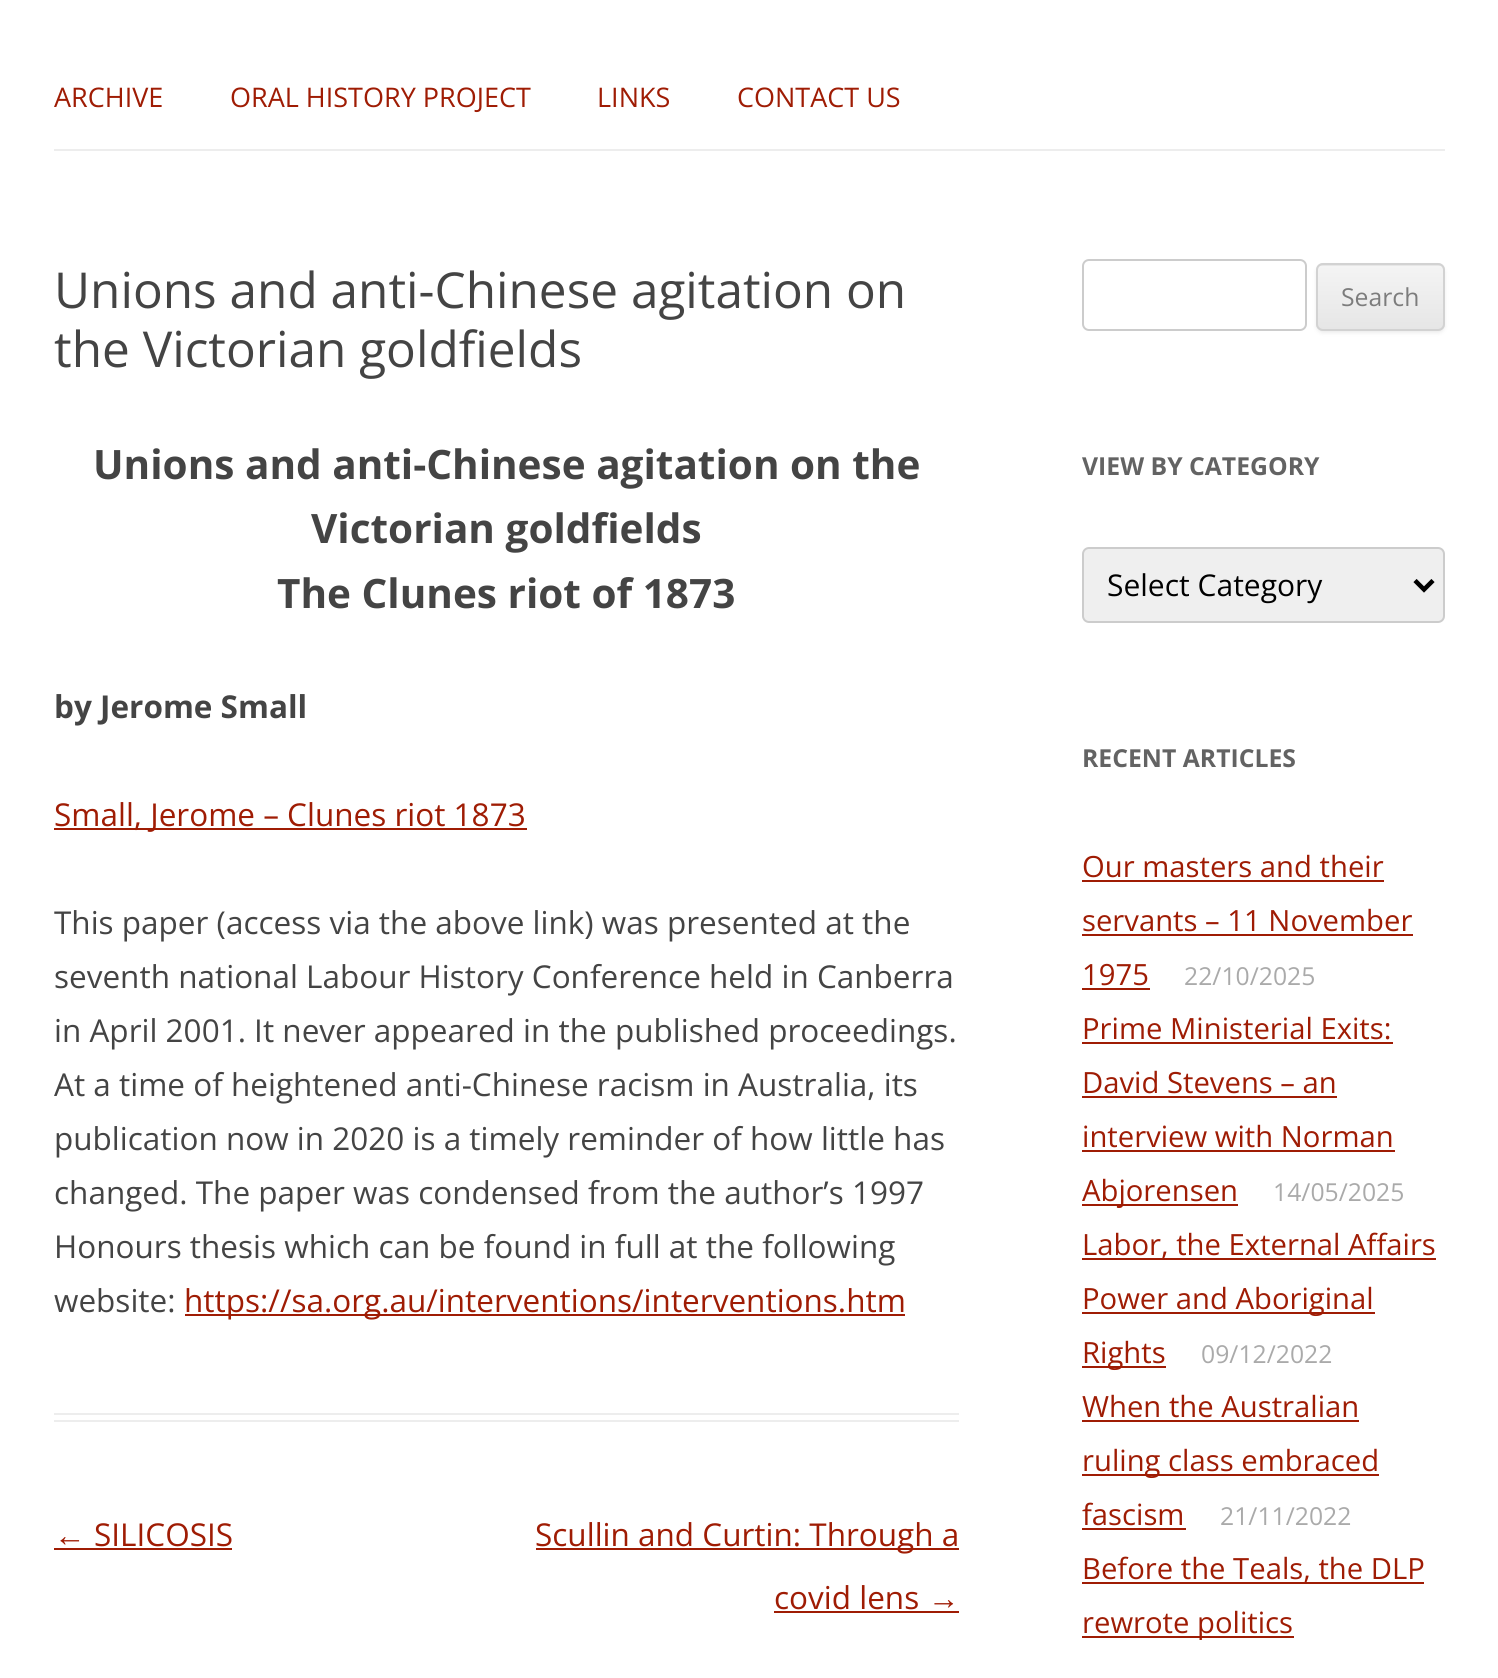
#include <cairo.h>
#include <math.h>
#include <stddef.h>

typedef struct { double x, y; const char *s; } line_t;

static void ink(cairo_t *ctx, unsigned color) {
    cairo_set_source_rgb(ctx, (color >> 16) / 255.0, (color >> 8 & 255) / 255.0, (color & 255) / 255.0);
}

static void round_path(cairo_t *ctx, double x, double y, double w, double h, double r) {
    cairo_new_sub_path(ctx);
    cairo_arc(ctx, x + w - r, y + h - r, r, 0, M_PI / 2);
    cairo_arc(ctx, x + r, y + h - r, r, M_PI / 2, M_PI);
    cairo_arc(ctx, x + r, y + r, r, M_PI, 1.5 * M_PI);
    cairo_arc(ctx, x + w - r, y + r, r, 1.5 * M_PI, 2 * M_PI);
    cairo_close_path(ctx);
}

static void blur_box(cairo_t *ctx, double x, double y, double w, double h, double r, double blur, double alpha) {
    cairo_push_group_with_content(ctx, CAIRO_CONTENT_ALPHA);
    cairo_set_operator(ctx, CAIRO_OPERATOR_SOURCE);
    for (int i = 15; i >= -15 && fmin(w, h) + blur * i / 3 > 0; i -= 2) {
        double e = blur * i / 6;
        cairo_set_source_rgba(ctx, 0, 0, 0, alpha * erfc((i - 1) / 8.5) / 2);
        round_path(ctx, x - e, y - e, w + 2 * e, h + 2 * e, fmax(0, fmin(r + e + blur * .6, fmin(w, h) / 2 + e)));
        cairo_fill(ctx);
    }
    cairo_pattern_t *soft = cairo_pop_group(ctx);
    cairo_mask(ctx, soft);
    cairo_pattern_destroy(soft);
}

int main(void) {
    cairo_surface_t *surface = cairo_image_surface_create(CAIRO_FORMAT_RGB24, 1498, 1678);
    cairo_t *ctx = cairo_create(surface);
    cairo_font_options_t *options = cairo_font_options_create();
    cairo_font_options_set_hint_metrics(options, CAIRO_HINT_METRICS_OFF);
    cairo_font_options_set_hint_style(options, CAIRO_HINT_STYLE_NONE);
    cairo_set_font_options(ctx, options);
    cairo_set_miter_limit(ctx, 4);
    cairo_pattern_t *gradient;
    ink(ctx, 0xFFFFFF);
    cairo_paint(ctx);
    ink(ctx, 0xEDEDED);
    cairo_rectangle(ctx, 54, 149, 1391, 2);
    cairo_fill(ctx);
    cairo_select_font_face(ctx, "Open Sans", CAIRO_FONT_SLANT_NORMAL, CAIRO_FONT_WEIGHT_NORMAL);
    cairo_set_font_size(ctx, 27);
    ink(ctx, 0x9F1C04);
    {
        static const line_t items[] = {
            {54, 107, "ARCHIVE"},
            {230, 107, "ORAL HISTORY PROJECT"},
            {597, 107, "LINKS"},
            {737, 107, "CONTACT US"},
        };
        for (size_t i = 0; i < sizeof items / sizeof *items; i++) {
            cairo_move_to(ctx, items[i].x, items[i].y);
            cairo_show_text(ctx, items[i].s);
        }
    }
    ink(ctx, 0xEDEDED);
    cairo_rectangle(ctx, 54, 1413, 905, 2);
    cairo_fill(ctx);
    cairo_rectangle(ctx, 54, 1420, 905, 2);
    cairo_fill(ctx);
    cairo_set_font_size(ctx, 49.5);
    ink(ctx, 0x444444);
    cairo_move_to(ctx, 54, 308);
    cairo_show_text(ctx, "Unions and anti-Chinese agitation on");
    cairo_move_to(ctx, 54, 367);
    cairo_show_text(ctx, "the Victorian goldfields");
    cairo_select_font_face(ctx, "Open Sans", CAIRO_FONT_SLANT_NORMAL, CAIRO_FONT_WEIGHT_BOLD);
    cairo_set_font_size(ctx, 40.5);
    {
        static const line_t items[] = {
            {93, 479, "Unions and anti-Chinese agitation on the"},
            {311, 543, "Victorian goldfields"},
            {277, 608, "The Clunes riot of 1873"},
        };
        for (size_t i = 0; i < sizeof items / sizeof *items; i++) {
            cairo_move_to(ctx, items[i].x, items[i].y);
            cairo_show_text(ctx, items[i].s);
        }
    }
    cairo_set_font_size(ctx, 31.5);
    cairo_move_to(ctx, 54, 718);
    cairo_show_text(ctx, "by Jerome Small");
    ink(ctx, 0x9F1C04);
    cairo_rectangle(ctx, 54, 828, 473, 2);
    cairo_fill(ctx);
    cairo_select_font_face(ctx, "Open Sans", CAIRO_FONT_SLANT_NORMAL, CAIRO_FONT_WEIGHT_NORMAL);
    cairo_move_to(ctx, 54, 826);
    cairo_show_text(ctx, "Small, Jerome – Clunes riot 1873");
    ink(ctx, 0x444444);
    {
        static const line_t items[] = {
            {54, 934, "This paper (access via the above link) was presented at the"},
            {54, 988, "seventh national Labour History Conference held in Canberra"},
            {54, 1042, "in April 2001. It never appeared in the published proceedings."},
            {54, 1096, "At a time of heightened anti-Chinese racism in Australia, its"},
            {54, 1150, "publication now in 2020 is a timely reminder of how little has"},
            {54, 1204, "changed. The paper was condensed from the author’s 1997"},
            {54, 1258, "Honours thesis which can be found in full at the following"},
            {54, 1312, "website:"},
        };
        for (size_t i = 0; i < sizeof items / sizeof *items; i++) {
            cairo_move_to(ctx, items[i].x, items[i].y);
            cairo_show_text(ctx, items[i].s);
        }
    }
    ink(ctx, 0x9F1C04);
    cairo_rectangle(ctx, 185, 1314, 720, 2);
    cairo_fill(ctx);
    cairo_move_to(ctx, 184, 1312);
    cairo_show_text(ctx, "https://sa.org.au/interventions/interventions.htm");
    cairo_select_font_face(ctx, "Liberation Sans", CAIRO_FONT_SLANT_NORMAL, CAIRO_FONT_WEIGHT_NORMAL);
    cairo_move_to(ctx, 54, 1546);
    cairo_show_text(ctx, "←");
    cairo_rectangle(ctx, 54, 1548, 178, 2);
    cairo_fill(ctx);
    cairo_select_font_face(ctx, "Open Sans", CAIRO_FONT_SLANT_NORMAL, CAIRO_FONT_WEIGHT_NORMAL);
    cairo_move_to(ctx, 94, 1546);
    cairo_show_text(ctx, "SILICOSIS");
    cairo_rectangle(ctx, 536, 1548, 423, 2);
    cairo_fill(ctx);
    cairo_move_to(ctx, 535, 1546);
    cairo_show_text(ctx, "Scullin and Curtin: Through a");
    cairo_move_to(ctx, 774, 1609);
    cairo_show_text(ctx, "covid lens");
    cairo_select_font_face(ctx, "Liberation Sans", CAIRO_FONT_SLANT_NORMAL, CAIRO_FONT_WEIGHT_NORMAL);
    cairo_move_to(ctx, 928, 1609);
    cairo_show_text(ctx, "→");
    cairo_rectangle(ctx, 774, 1611, 185, 2);
    cairo_fill(ctx);
    round_path(ctx, 1083, 260, 223, 70, 6);
    ink(ctx, 0xCCCCCC);
    cairo_stroke(ctx);
    ink(ctx, 0x404040);
    blur_box(ctx, 1316, 266, 129, 67, 7, 2, 0.1);
    ink(ctx, 0xE6E6E6);
    round_path(ctx, 1316, 263, 129, 68, 7);
    cairo_fill(ctx);
    cairo_save(ctx);
    round_path(ctx, 1316, 263, 129, 68, 7);
    cairo_clip(ctx);
    gradient = cairo_pattern_create_linear(1380, 266, 1380, 329);
    cairo_pattern_add_color_stop_rgba(gradient, 0, 0.957, 0.957, 0.957, 1);
    cairo_pattern_add_color_stop_rgba(gradient, 1, 0.902, 0.902, 0.902, 1);
    cairo_set_source(ctx, gradient);
    cairo_pattern_destroy(gradient);
    cairo_rectangle(ctx, 1316, 266, 129, 63);
    cairo_fill(ctx);
    cairo_restore(ctx);
    round_path(ctx, 1317, 264, 127, 66, 6);
    ink(ctx, 0xD2D2D2);
    cairo_stroke(ctx);
    cairo_select_font_face(ctx, "Open Sans", CAIRO_FONT_SLANT_NORMAL, CAIRO_FONT_WEIGHT_NORMAL);
    cairo_set_font_size(ctx, 24.75);
    ink(ctx, 0x7C7C7C);
    cairo_move_to(ctx, 1341, 306);
    cairo_show_text(ctx, "Search");
    cairo_select_font_face(ctx, "Open Sans", CAIRO_FONT_SLANT_NORMAL, CAIRO_FONT_WEIGHT_BOLD);
    ink(ctx, 0x636363);
    cairo_move_to(ctx, 1082, 475);
    cairo_show_text(ctx, "VIEW BY CATEGORY");
    ink(ctx, 0xEFEFEF);
    round_path(ctx, 1083, 548, 361, 74, 6);
    cairo_fill_preserve(ctx);
    ink(ctx, 0xCCCCCC);
    cairo_stroke(ctx);
    cairo_new_path(ctx);
    cairo_move_to(ctx, 1415, 580.5);
    cairo_line_to(ctx, 1424, 589.5);
    cairo_line_to(ctx, 1433, 580.5);
    ink(ctx, 0x000000);
    cairo_set_line_width(ctx, 4.5);
    cairo_stroke(ctx);
    cairo_select_font_face(ctx, "Open Sans", CAIRO_FONT_SLANT_NORMAL, CAIRO_FONT_WEIGHT_NORMAL);
    cairo_set_font_size(ctx, 30);
    cairo_move_to(ctx, 1107, 596);
    cairo_show_text(ctx, "Select Category");
    cairo_select_font_face(ctx, "Open Sans", CAIRO_FONT_SLANT_NORMAL, CAIRO_FONT_WEIGHT_BOLD);
    cairo_set_font_size(ctx, 24.75);
    ink(ctx, 0x636363);
    cairo_move_to(ctx, 1082, 767);
    cairo_show_text(ctx, "RECENT ARTICLES");
    cairo_select_font_face(ctx, "Open Sans", CAIRO_FONT_SLANT_NORMAL, CAIRO_FONT_WEIGHT_NORMAL);
    cairo_set_font_size(ctx, 29.25);
    ink(ctx, 0x9F1C04);
    cairo_move_to(ctx, 1082, 877);
    cairo_show_text(ctx, "Our masters and their");
    cairo_rectangle(ctx, 1082, 880, 302, 2);
    cairo_fill(ctx);
    cairo_move_to(ctx, 1082, 931);
    cairo_show_text(ctx, "servants – 11 November");
    cairo_rectangle(ctx, 1082, 934, 331, 2);
    cairo_fill(ctx);
    cairo_move_to(ctx, 1082, 985);
    cairo_show_text(ctx, "1975");
    cairo_rectangle(ctx, 1082, 988, 68, 2);
    cairo_fill(ctx);
    cairo_set_font_size(ctx, 24.75);
    ink(ctx, 0xAAAAAA);
    cairo_move_to(ctx, 1184, 985);
    cairo_show_text(ctx, "22/10/2025");
    cairo_set_font_size(ctx, 29.25);
    ink(ctx, 0x9F1C04);
    cairo_move_to(ctx, 1082, 1039);
    cairo_show_text(ctx, "Prime Ministerial Exits:");
    cairo_rectangle(ctx, 1082, 1042, 311, 2);
    cairo_fill(ctx);
    cairo_move_to(ctx, 1082, 1093);
    cairo_show_text(ctx, "David Stevens – an");
    cairo_rectangle(ctx, 1082, 1096, 255, 2);
    cairo_fill(ctx);
    cairo_move_to(ctx, 1082, 1147);
    cairo_show_text(ctx, "interview with Norman");
    cairo_rectangle(ctx, 1082, 1150, 313, 2);
    cairo_fill(ctx);
    cairo_rectangle(ctx, 1082, 1204, 156, 2);
    cairo_fill(ctx);
    cairo_move_to(ctx, 1082, 1201);
    cairo_show_text(ctx, "Abjorensen");
    cairo_set_font_size(ctx, 24.75);
    ink(ctx, 0xAAAAAA);
    cairo_move_to(ctx, 1273, 1201);
    cairo_show_text(ctx, "14/05/2025");
    ink(ctx, 0x9F1C04);
    cairo_rectangle(ctx, 1082, 1258, 354, 2);
    cairo_fill(ctx);
    cairo_set_font_size(ctx, 29.25);
    cairo_move_to(ctx, 1082, 1255);
    cairo_show_text(ctx, "Labor, the External Affairs");
    cairo_rectangle(ctx, 1082, 1312, 293, 2);
    cairo_fill(ctx);
    cairo_move_to(ctx, 1082, 1309);
    cairo_show_text(ctx, "Power and Aboriginal");
    cairo_rectangle(ctx, 1082, 1366, 84, 2);
    cairo_fill(ctx);
    cairo_move_to(ctx, 1082, 1363);
    cairo_show_text(ctx, "Rights");
    cairo_set_font_size(ctx, 24.75);
    ink(ctx, 0xAAAAAA);
    cairo_move_to(ctx, 1201, 1363);
    cairo_show_text(ctx, "09/12/2022");
    cairo_set_font_size(ctx, 29.25);
    ink(ctx, 0x9F1C04);
    cairo_move_to(ctx, 1082, 1417);
    cairo_show_text(ctx, "When the Australian");
    cairo_rectangle(ctx, 1082, 1420, 277, 2);
    cairo_fill(ctx);
    cairo_rectangle(ctx, 1082, 1474, 297, 2);
    cairo_fill(ctx);
    cairo_move_to(ctx, 1082, 1471);
    cairo_show_text(ctx, "ruling class embraced");
    cairo_move_to(ctx, 1082, 1525);
    cairo_show_text(ctx, "fascism");
    cairo_rectangle(ctx, 1082, 1528, 104, 2);
    cairo_fill(ctx);
    cairo_set_font_size(ctx, 24.75);
    ink(ctx, 0xAAAAAA);
    cairo_move_to(ctx, 1220, 1525);
    cairo_show_text(ctx, "21/11/2022");
    ink(ctx, 0x9F1C04);
    cairo_rectangle(ctx, 1082, 1582, 342, 2);
    cairo_fill(ctx);
    cairo_set_font_size(ctx, 29.25);
    cairo_move_to(ctx, 1082, 1579);
    cairo_show_text(ctx, "Before the Teals, the DLP");
    cairo_rectangle(ctx, 1082, 1636, 212, 2);
    cairo_fill(ctx);
    cairo_move_to(ctx, 1082, 1633);
    cairo_show_text(ctx, "rewrote politics");
    cairo_surface_write_to_png(surface, "image.png");
    cairo_font_options_destroy(options);
    cairo_destroy(ctx);
    cairo_surface_destroy(surface);
    return 0;
}
